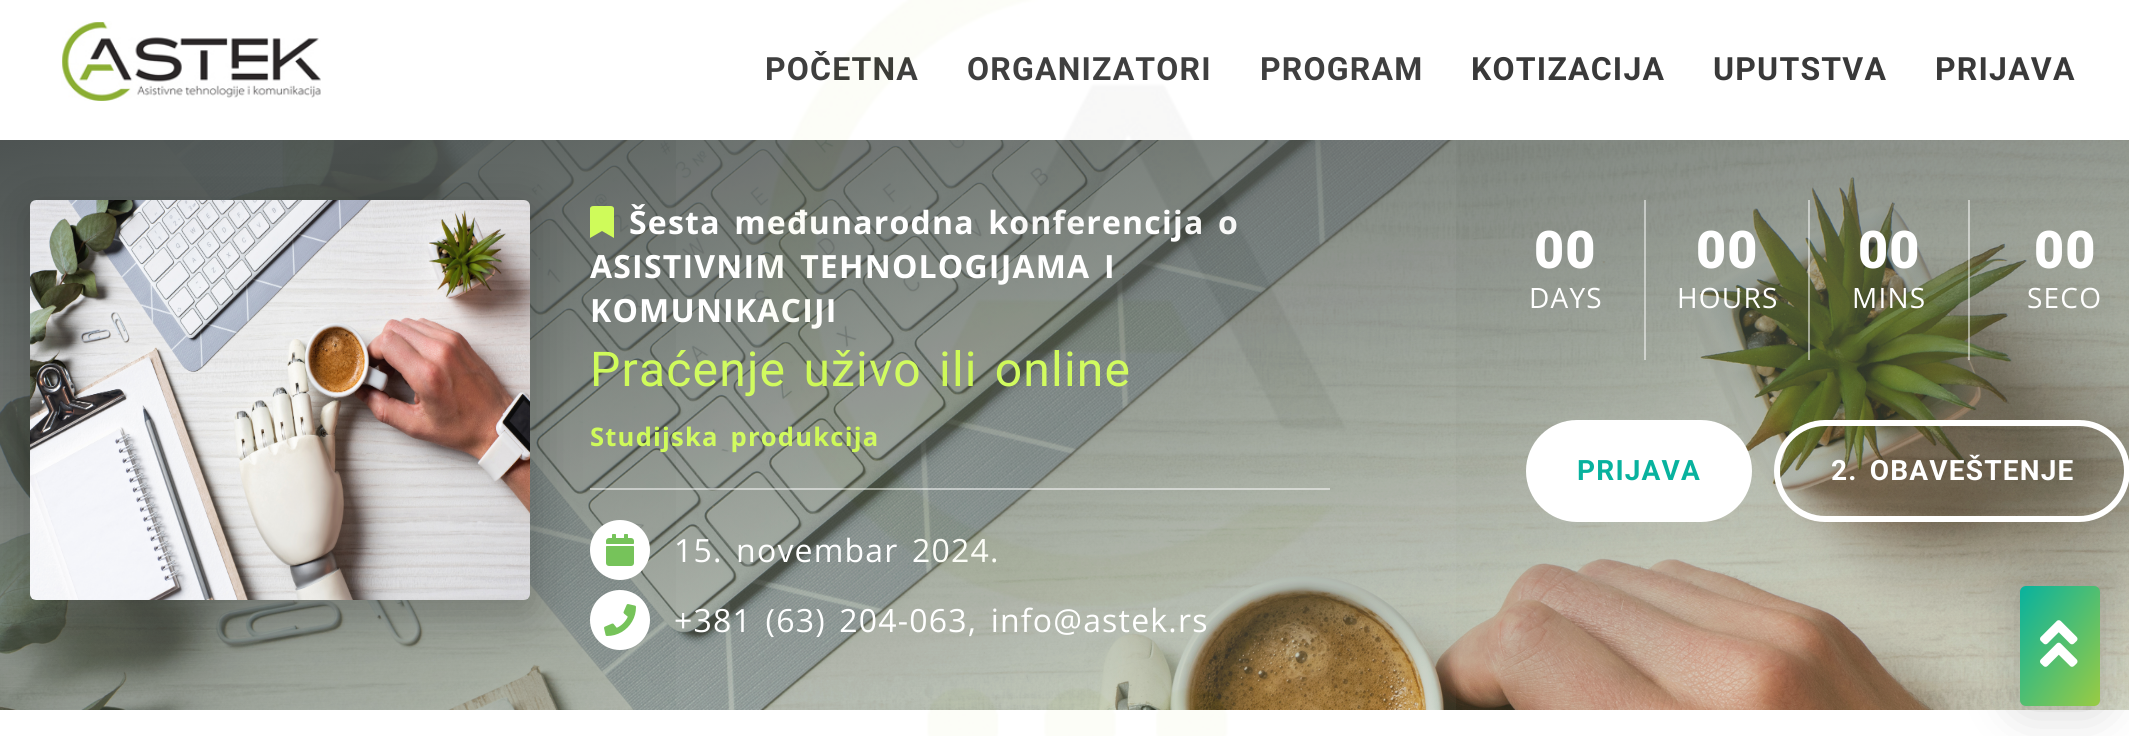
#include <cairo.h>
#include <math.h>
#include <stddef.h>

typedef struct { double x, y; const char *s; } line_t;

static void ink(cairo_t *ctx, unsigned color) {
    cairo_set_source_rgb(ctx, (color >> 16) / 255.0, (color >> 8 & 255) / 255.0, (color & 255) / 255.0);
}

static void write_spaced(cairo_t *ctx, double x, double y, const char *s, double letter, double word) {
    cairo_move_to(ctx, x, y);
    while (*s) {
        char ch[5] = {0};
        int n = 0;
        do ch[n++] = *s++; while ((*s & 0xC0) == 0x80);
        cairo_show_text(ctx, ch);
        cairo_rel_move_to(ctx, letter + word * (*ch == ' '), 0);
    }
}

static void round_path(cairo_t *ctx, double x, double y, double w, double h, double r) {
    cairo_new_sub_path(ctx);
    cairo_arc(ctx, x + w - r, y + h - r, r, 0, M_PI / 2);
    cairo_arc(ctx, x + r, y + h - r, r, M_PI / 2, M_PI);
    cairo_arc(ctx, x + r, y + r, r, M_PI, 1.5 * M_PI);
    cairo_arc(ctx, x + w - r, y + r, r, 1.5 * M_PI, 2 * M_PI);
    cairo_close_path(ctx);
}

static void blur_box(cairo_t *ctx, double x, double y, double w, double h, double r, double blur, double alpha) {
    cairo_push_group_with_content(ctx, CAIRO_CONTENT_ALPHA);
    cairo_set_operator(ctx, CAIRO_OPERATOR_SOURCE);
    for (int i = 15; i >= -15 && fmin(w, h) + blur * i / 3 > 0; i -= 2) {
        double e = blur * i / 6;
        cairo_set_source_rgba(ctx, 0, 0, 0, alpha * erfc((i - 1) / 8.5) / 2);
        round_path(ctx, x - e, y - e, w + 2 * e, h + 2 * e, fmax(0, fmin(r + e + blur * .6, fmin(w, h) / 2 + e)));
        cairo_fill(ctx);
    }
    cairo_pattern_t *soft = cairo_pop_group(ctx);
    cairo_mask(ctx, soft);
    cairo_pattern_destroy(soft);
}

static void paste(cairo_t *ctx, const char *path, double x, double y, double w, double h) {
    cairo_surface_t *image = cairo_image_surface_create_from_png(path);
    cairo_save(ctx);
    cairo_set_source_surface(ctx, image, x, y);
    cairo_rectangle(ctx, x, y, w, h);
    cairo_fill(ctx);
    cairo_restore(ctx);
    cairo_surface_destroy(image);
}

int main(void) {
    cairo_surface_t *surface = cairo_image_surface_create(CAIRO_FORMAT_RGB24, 2129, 736);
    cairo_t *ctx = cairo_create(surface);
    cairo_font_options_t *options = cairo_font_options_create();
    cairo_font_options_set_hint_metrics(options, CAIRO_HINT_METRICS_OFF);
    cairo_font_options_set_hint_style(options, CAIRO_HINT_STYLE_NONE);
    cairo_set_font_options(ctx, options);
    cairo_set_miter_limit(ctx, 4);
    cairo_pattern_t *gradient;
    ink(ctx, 0xFFFFFF);
    cairo_paint(ctx);
    cairo_select_font_face(ctx, "Roboto", CAIRO_FONT_SLANT_NORMAL, CAIRO_FONT_WEIGHT_BOLD);
    cairo_set_font_size(ctx, 32);
    ink(ctx, 0x393939);
    {
        static const line_t items[] = {
            {765, 80, "POČETNA"},
            {967, 80, "ORGANIZATORI"},
            {1260, 80, "PROGRAM"},
        };
        for (size_t i = 0; i < sizeof items / sizeof *items; i++) {
            write_spaced(ctx, items[i].x, items[i].y, items[i].s, 1.2, 0);
        }
    }
    paste(ctx, "media/3.png", 0, 140, 2129, 570);
    cairo_set_source_rgba(ctx, 1, 1, 1, 0.5);
    cairo_rectangle(ctx, 590, 488, 740, 2);
    cairo_fill(ctx);
    cairo_select_font_face(ctx, "Open Sans", CAIRO_FONT_SLANT_NORMAL, CAIRO_FONT_WEIGHT_BOLD);
    ink(ctx, 0xFFFFFF);
    write_spaced(ctx, 629, 234, "Šesta međunarodna konferencija o", 1.2, 4);
    write_spaced(ctx, 590, 278, "ASISTIVNIM TEHNOLOGIJAMA I", 1.2, 4);
    write_spaced(ctx, 590, 322, "KOMUNIKACIJI", 1.2, 0);
    cairo_select_font_face(ctx, "Roboto", CAIRO_FONT_SLANT_NORMAL, CAIRO_FONT_WEIGHT_NORMAL);
    cairo_set_font_size(ctx, 48);
    ink(ctx, 0xCFFB5A);
    write_spaced(ctx, 590, 386, "Praćenje uživo ili online", 1.2, 4);
    cairo_select_font_face(ctx, "Open Sans", CAIRO_FONT_SLANT_NORMAL, CAIRO_FONT_WEIGHT_BOLD);
    cairo_set_font_size(ctx, 25.6);
    write_spaced(ctx, 590, 446, "Studijska produkcija", 1.2, 4);
    cairo_select_font_face(ctx, "Open Sans", CAIRO_FONT_SLANT_NORMAL, CAIRO_FONT_WEIGHT_NORMAL);
    cairo_set_font_size(ctx, 32);
    ink(ctx, 0xFFFFFF);
    write_spaced(ctx, 674, 562, "15. novembar 2024.", 1.2, 4);
    write_spaced(ctx, 674, 632, "+381 (63) 204-063, info@astek.rs", 1.2, 4);
    paste(ctx, "media/1.png", 676, 0, 780, 736);
    paste(ctx, "media/2.png", 61, 21, 260, 80);
    cairo_select_font_face(ctx, "Roboto", CAIRO_FONT_SLANT_NORMAL, CAIRO_FONT_WEIGHT_BOLD);
    ink(ctx, 0x393939);
    {
        static const line_t items[] = {
            {1471, 80, "KOTIZACIJA"},
            {1713, 80, "UPUTSTVA"},
            {1935, 80, "PRIJAVA"},
        };
        for (size_t i = 0; i < sizeof items / sizeof *items; i++) {
            write_spaced(ctx, items[i].x, items[i].y, items[i].s, 1.2, 0);
        }
    }
    ink(ctx, 0xCFFB5A);
    cairo_new_path(ctx);
    cairo_move_to(ctx, 590, 238);
    cairo_line_to(ctx, 590, 208.5);
    cairo_curve_to(ctx, 590.5, 205.5, 594, 206, 596, 206);
    cairo_line_to(ctx, 608, 206);
    cairo_curve_to(ctx, 610, 206, 613.5, 205.5, 614, 208.5);
    cairo_line_to(ctx, 614, 238);
    cairo_line_to(ctx, 602, 231);
    cairo_close_path(ctx);
    cairo_fill(ctx);
    ink(ctx, 0xFFFFFF);
    cairo_arc(ctx, 620, 550, 30, 0, 2 * M_PI);
    cairo_fill(ctx);
    cairo_arc(ctx, 620, 620, 30, 0, 2 * M_PI);
    cairo_fill(ctx);
    ink(ctx, 0x080808);
    blur_box(ctx, 20, 200, 520, 420, 16, 20, 0.2);
    paste(ctx, "media/4.png", 30, 200, 500, 400);
    paste(ctx, "media/5.png", 606, 534, 28, 32);
    paste(ctx, "media/6.png", 604, 604, 32, 32);
    cairo_set_source_rgba(ctx, 1, 1, 1, 0.5);
    cairo_rectangle(ctx, 1644, 200, 2, 160);
    cairo_fill(ctx);
    cairo_select_font_face(ctx, "Roboto Black", CAIRO_FONT_SLANT_NORMAL, CAIRO_FONT_WEIGHT_NORMAL);
    cairo_set_font_size(ctx, 52);
    ink(ctx, 0xFFFFFF);
    write_spaced(ctx, 1534, 268, "00", 1.2, 0);
    cairo_select_font_face(ctx, "Open Sans", CAIRO_FONT_SLANT_NORMAL, CAIRO_FONT_WEIGHT_NORMAL);
    cairo_set_font_size(ctx, 28);
    write_spaced(ctx, 1529, 308, "DAYS", 1.2, 0);
    cairo_set_source_rgba(ctx, 1, 1, 1, 0.5);
    cairo_rectangle(ctx, 1808, 200, 2, 160);
    cairo_fill(ctx);
    cairo_select_font_face(ctx, "Roboto Black", CAIRO_FONT_SLANT_NORMAL, CAIRO_FONT_WEIGHT_NORMAL);
    cairo_set_font_size(ctx, 52);
    ink(ctx, 0xFFFFFF);
    write_spaced(ctx, 1696, 268, "00", 1.2, 0);
    cairo_select_font_face(ctx, "Open Sans", CAIRO_FONT_SLANT_NORMAL, CAIRO_FONT_WEIGHT_NORMAL);
    cairo_set_font_size(ctx, 28);
    write_spaced(ctx, 1677, 308, "HOURS", 1.2, 0);
    cairo_set_source_rgba(ctx, 1, 1, 1, 0.5);
    cairo_rectangle(ctx, 1968, 200, 2, 160);
    cairo_fill(ctx);
    cairo_select_font_face(ctx, "Roboto Black", CAIRO_FONT_SLANT_NORMAL, CAIRO_FONT_WEIGHT_NORMAL);
    cairo_set_font_size(ctx, 52);
    ink(ctx, 0xFFFFFF);
    write_spaced(ctx, 1858, 268, "00", 1.2, 0);
    cairo_select_font_face(ctx, "Open Sans", CAIRO_FONT_SLANT_NORMAL, CAIRO_FONT_WEIGHT_NORMAL);
    cairo_set_font_size(ctx, 28);
    write_spaced(ctx, 1852, 308, "MINS", 1.2, 0);
    cairo_select_font_face(ctx, "Roboto Black", CAIRO_FONT_SLANT_NORMAL, CAIRO_FONT_WEIGHT_NORMAL);
    cairo_set_font_size(ctx, 52);
    write_spaced(ctx, 2034, 268, "00", 1.2, 0);
    cairo_select_font_face(ctx, "Open Sans", CAIRO_FONT_SLANT_NORMAL, CAIRO_FONT_WEIGHT_NORMAL);
    cairo_set_font_size(ctx, 28);
    write_spaced(ctx, 2027, 308, "SECO", 1.2, 0);
    round_path(ctx, 1526, 420, 226, 102, 51);
    cairo_fill(ctx);
    cairo_select_font_face(ctx, "Roboto", CAIRO_FONT_SLANT_NORMAL, CAIRO_FONT_WEIGHT_BOLD);
    ink(ctx, 0x08B29E);
    write_spaced(ctx, 1577, 480, "PRIJAVA", 1.2, 0);
    round_path(ctx, 1777, 423, 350, 96, 48);
    ink(ctx, 0xFFFFFF);
    cairo_set_line_width(ctx, 6);
    cairo_stroke(ctx);
    write_spaced(ctx, 1831, 480, "2. OBAVEŠTENJE", 1.2, 4);
    ink(ctx, 0x080808);
    blur_box(ctx, 2018, 584, 84, 124, 8, 25, 0.2);
    gradient = cairo_pattern_create_linear(2005, 609, 2115, 683);
    cairo_pattern_add_color_stop_rgba(gradient, 0, 0.031, 0.698, 0.62, 1);
    cairo_pattern_add_color_stop_rgba(gradient, 1, 0.6, 0.796, 0.263, 1);
    cairo_set_source(ctx, gradient);
    cairo_pattern_destroy(gradient);
    round_path(ctx, 2020, 586, 80, 120, 6);
    cairo_fill(ctx);
    paste(ctx, "media/7.png", 2040, 620, 38, 47);
    cairo_surface_write_to_png(surface, "image.png");
    cairo_font_options_destroy(options);
    cairo_destroy(ctx);
    cairo_surface_destroy(surface);
    return 0;
}
